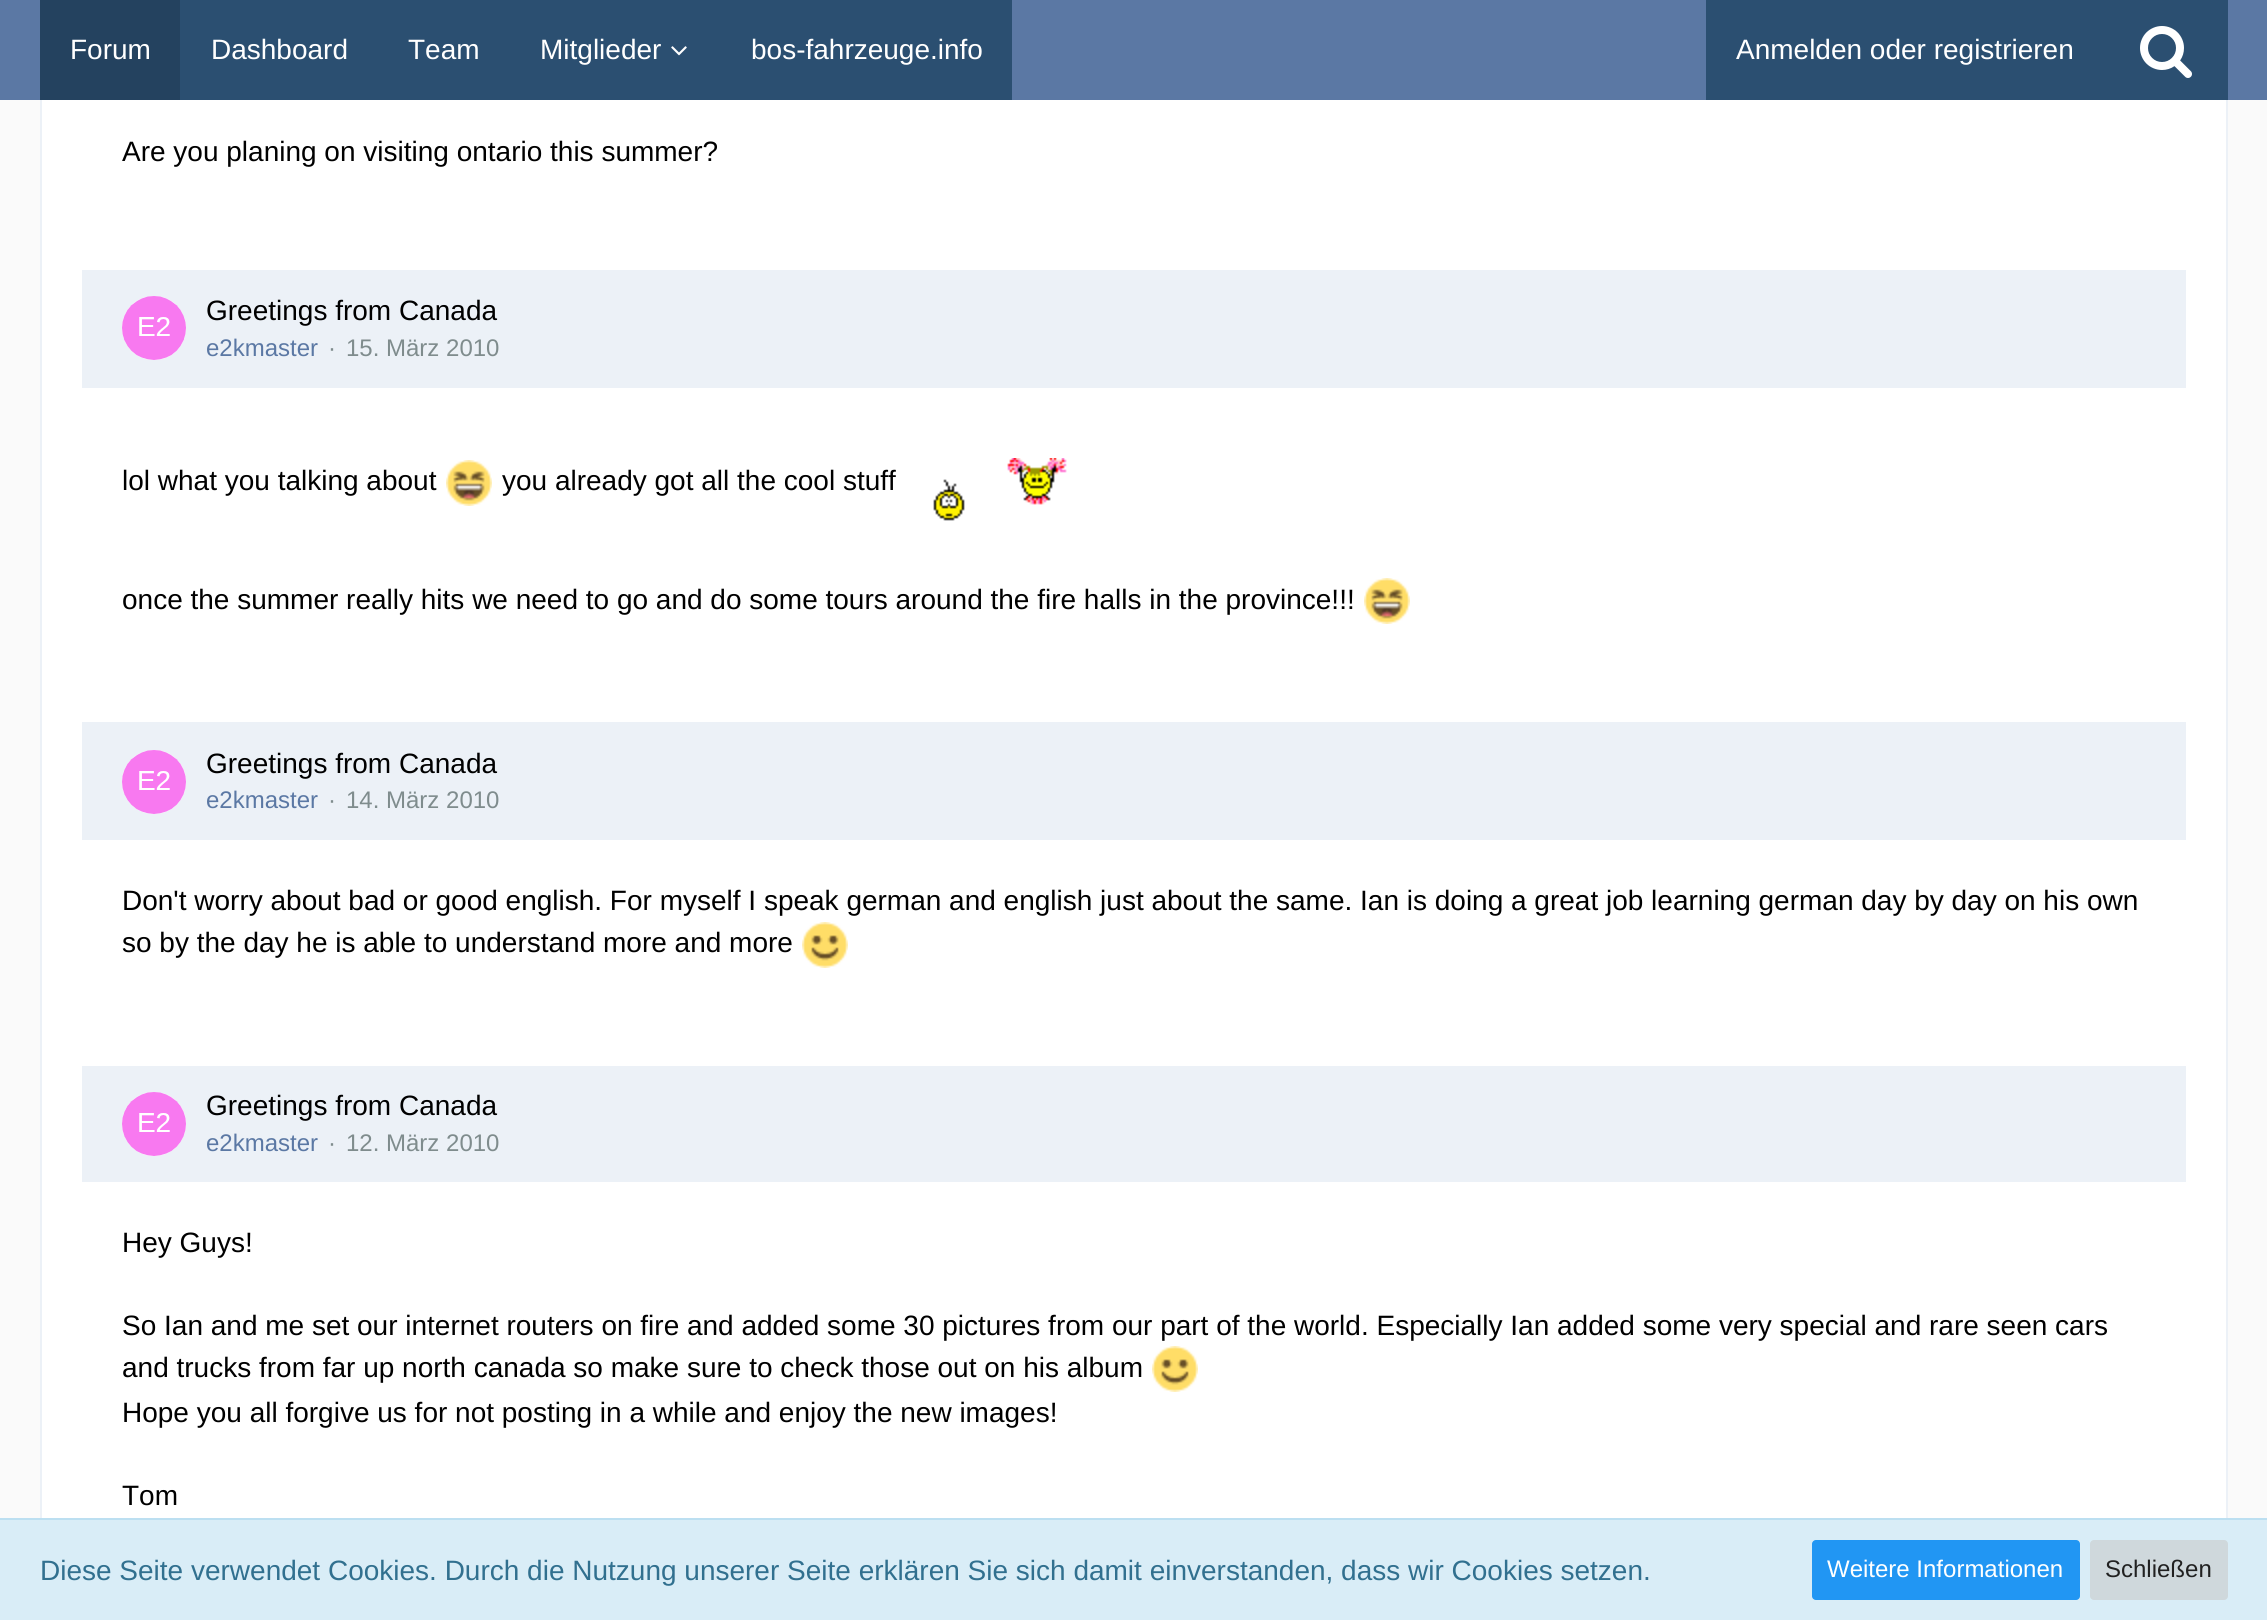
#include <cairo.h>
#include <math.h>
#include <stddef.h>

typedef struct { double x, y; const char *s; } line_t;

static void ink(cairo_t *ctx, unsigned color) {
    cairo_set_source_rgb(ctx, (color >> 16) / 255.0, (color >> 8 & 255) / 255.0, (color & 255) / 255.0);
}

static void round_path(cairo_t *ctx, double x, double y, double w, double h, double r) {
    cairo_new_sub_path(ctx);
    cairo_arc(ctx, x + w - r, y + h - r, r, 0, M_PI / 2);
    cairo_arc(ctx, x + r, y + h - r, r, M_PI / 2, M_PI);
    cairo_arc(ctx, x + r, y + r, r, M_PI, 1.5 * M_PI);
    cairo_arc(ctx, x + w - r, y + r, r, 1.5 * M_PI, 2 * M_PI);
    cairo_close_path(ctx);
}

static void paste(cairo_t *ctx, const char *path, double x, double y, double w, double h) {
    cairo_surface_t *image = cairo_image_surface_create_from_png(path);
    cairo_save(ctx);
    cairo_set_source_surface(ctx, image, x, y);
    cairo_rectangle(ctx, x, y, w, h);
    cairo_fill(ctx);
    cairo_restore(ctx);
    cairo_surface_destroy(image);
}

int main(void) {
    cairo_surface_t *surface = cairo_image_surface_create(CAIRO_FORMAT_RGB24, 2267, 1620);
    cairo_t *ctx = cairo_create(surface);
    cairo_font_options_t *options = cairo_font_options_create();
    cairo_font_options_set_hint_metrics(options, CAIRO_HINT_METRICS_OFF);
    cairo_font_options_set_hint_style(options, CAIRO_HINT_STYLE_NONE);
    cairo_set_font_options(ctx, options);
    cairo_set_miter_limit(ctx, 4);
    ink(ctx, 0xFAFAFA);
    cairo_paint(ctx);
    ink(ctx, 0xFFFFFF);
    cairo_rectangle(ctx, 42, 100, 2184, 1418);
    cairo_fill(ctx);
    cairo_rectangle(ctx, 41, -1, 2186, 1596);
    ink(ctx, 0xECF1F7);
    cairo_stroke(ctx);
    ink(ctx, 0x5B78A4);
    cairo_rectangle(ctx, 0, 0, 2267, 100);
    cairo_fill(ctx);
    ink(ctx, 0x24425F);
    cairo_rectangle(ctx, 40, 0, 140, 100);
    cairo_fill(ctx);
    cairo_select_font_face(ctx, "Liberation Sans", CAIRO_FONT_SLANT_NORMAL, CAIRO_FONT_WEIGHT_NORMAL);
    cairo_set_font_size(ctx, 28);
    ink(ctx, 0xFFFFFF);
    cairo_move_to(ctx, 70, 59);
    cairo_show_text(ctx, "Forum");
    ink(ctx, 0x2B4F71);
    cairo_rectangle(ctx, 180, 0, 832, 100);
    cairo_fill(ctx);
    ink(ctx, 0xFFFFFF);
    {
        static const line_t items[] = {
            {211, 59, "Dashboard"},
            {408, 59, "Team"},
            {540, 59, "Mitglieder"},
        };
        for (size_t i = 0; i < sizeof items / sizeof *items; i++) {
            cairo_move_to(ctx, items[i].x, items[i].y);
            cairo_show_text(ctx, items[i].s);
        }
    }
    paste(ctx, "media/1.png", 671, 46, 16, 10);
    cairo_move_to(ctx, 751, 59);
    cairo_show_text(ctx, "bos-fahrzeuge.info");
    ink(ctx, 0x2B4F71);
    cairo_rectangle(ctx, 1706, 0, 522, 100);
    cairo_fill(ctx);
    ink(ctx, 0xFFFFFF);
    cairo_move_to(ctx, 1736, 59);
    cairo_show_text(ctx, "Anmelden oder registrieren");
    paste(ctx, "media/2.png", 2140, 26, 52, 52);
    ink(ctx, 0x000000);
    cairo_move_to(ctx, 122, 161);
    cairo_show_text(ctx, "Are you planing on visiting ontario this summer?");
    ink(ctx, 0xECF1F7);
    cairo_rectangle(ctx, 82, 270, 2104, 118);
    cairo_fill(ctx);
    ink(ctx, 0xFFFFFF);
    cairo_arc(ctx, 154, 328, 32, 0, 2 * M_PI);
    cairo_fill(ctx);
    paste(ctx, "media/3.png", 122, 296, 64, 64);
    ink(ctx, 0x000000);
    cairo_move_to(ctx, 206, 320);
    cairo_show_text(ctx, "Greetings from Canada");
    cairo_set_font_size(ctx, 24);
    ink(ctx, 0x5B78A4);
    cairo_move_to(ctx, 206, 356);
    cairo_show_text(ctx, "e2kmaster");
    ink(ctx, 0x7F8C8D);
    cairo_move_to(ctx, 328, 356);
    cairo_show_text(ctx, "·");
    cairo_move_to(ctx, 346, 356);
    cairo_show_text(ctx, "15. März 2010");
    cairo_set_font_size(ctx, 28);
    ink(ctx, 0x000000);
    cairo_move_to(ctx, 122, 490);
    cairo_show_text(ctx, "lol what you talking about");
    paste(ctx, "media/4.png", 446, 460, 46, 46);
    cairo_move_to(ctx, 502, 490);
    cairo_show_text(ctx, "you already got all the cool stuff");
    paste(ctx, "media/5.png", 933, 479, 32, 42);
    paste(ctx, "media/6.png", 1007, 458, 60, 47);
    cairo_move_to(ctx, 122, 609);
    cairo_show_text(ctx, "once the summer really hits we need to go and do some tours around the fire halls in the province!!!");
    paste(ctx, "media/4.png", 1364, 578, 46, 46);
    ink(ctx, 0xECF1F7);
    cairo_rectangle(ctx, 82, 722, 2104, 118);
    cairo_fill(ctx);
    ink(ctx, 0xFFFFFF);
    cairo_arc(ctx, 154, 782, 32, 0, 2 * M_PI);
    cairo_fill(ctx);
    paste(ctx, "media/7.png", 122, 750, 64, 64);
    ink(ctx, 0x000000);
    cairo_move_to(ctx, 206, 773);
    cairo_show_text(ctx, "Greetings from Canada");
    cairo_set_font_size(ctx, 24);
    ink(ctx, 0x5B78A4);
    cairo_move_to(ctx, 206, 808);
    cairo_show_text(ctx, "e2kmaster");
    ink(ctx, 0x7F8C8D);
    cairo_move_to(ctx, 328, 808);
    cairo_show_text(ctx, "·");
    cairo_move_to(ctx, 346, 808);
    cairo_show_text(ctx, "14. März 2010");
    cairo_set_font_size(ctx, 28);
    ink(ctx, 0x000000);
    cairo_move_to(ctx, 122, 910);
    cairo_show_text(ctx, "Don't worry about bad or good english. For myself I speak german and english just about the same. Ian is doing a great job learning german day by day on his own");
    cairo_move_to(ctx, 122, 952);
    cairo_show_text(ctx, "so by the day he is able to understand more and more");
    paste(ctx, "media/8.png", 802, 922, 46, 46);
    ink(ctx, 0xECF1F7);
    cairo_rectangle(ctx, 82, 1066, 2104, 116);
    cairo_fill(ctx);
    ink(ctx, 0xFFFFFF);
    cairo_arc(ctx, 154, 1124, 32, 0, 2 * M_PI);
    cairo_fill(ctx);
    paste(ctx, "media/9.png", 122, 1092, 64, 64);
    ink(ctx, 0x000000);
    cairo_move_to(ctx, 206, 1115);
    cairo_show_text(ctx, "Greetings from Canada");
    cairo_set_font_size(ctx, 24);
    ink(ctx, 0x5B78A4);
    cairo_move_to(ctx, 206, 1151);
    cairo_show_text(ctx, "e2kmaster");
    ink(ctx, 0x7F8C8D);
    cairo_move_to(ctx, 328, 1151);
    cairo_show_text(ctx, "·");
    cairo_move_to(ctx, 346, 1151);
    cairo_show_text(ctx, "12. März 2010");
    cairo_set_font_size(ctx, 28);
    ink(ctx, 0x000000);
    {
        static const line_t items[] = {
            {122, 1252, "Hey Guys!"},
            {122, 1335, "So Ian and me set our internet routers on fire and added some 30 pictures from our part of the world. Especially Ian added some very special and rare seen cars"},
            {122, 1377, "and trucks from far up north canada so make sure to check those out on his album"},
        };
        for (size_t i = 0; i < sizeof items / sizeof *items; i++) {
            cairo_move_to(ctx, items[i].x, items[i].y);
            cairo_show_text(ctx, items[i].s);
        }
    }
    paste(ctx, "media/8.png", 1152, 1346, 46, 46);
    cairo_move_to(ctx, 122, 1422);
    cairo_show_text(ctx, "Hope you all forgive us for not posting in a while and enjoy the new images!");
    cairo_move_to(ctx, 122, 1505);
    cairo_show_text(ctx, "Tom");
    ink(ctx, 0xD9EDF7);
    cairo_rectangle(ctx, 0, 1520, 2267, 100);
    cairo_fill(ctx);
    ink(ctx, 0xBCDFF1);
    cairo_rectangle(ctx, 0, 1518, 2267, 2);
    cairo_fill(ctx);
    ink(ctx, 0x31708F);
    cairo_move_to(ctx, 40, 1580);
    cairo_show_text(ctx, "Diese Seite verwendet Cookies. Durch die Nutzung unserer Seite erklären Sie sich damit einverstanden, dass wir Cookies setzen.");
    ink(ctx, 0x2196F3);
    round_path(ctx, 1812, 1540, 268, 60, 4);
    cairo_fill(ctx);
    cairo_set_font_size(ctx, 24);
    ink(ctx, 0xFFFFFF);
    cairo_move_to(ctx, 1827, 1577);
    cairo_show_text(ctx, "Weitere Informationen");
    ink(ctx, 0xCFD8DC);
    round_path(ctx, 2090, 1540, 138, 60, 4);
    cairo_fill(ctx);
    ink(ctx, 0x212121);
    cairo_move_to(ctx, 2105, 1577);
    cairo_show_text(ctx, "Schließen");
    cairo_surface_write_to_png(surface, "image.png");
    cairo_font_options_destroy(options);
    cairo_destroy(ctx);
    cairo_surface_destroy(surface);
    return 0;
}
